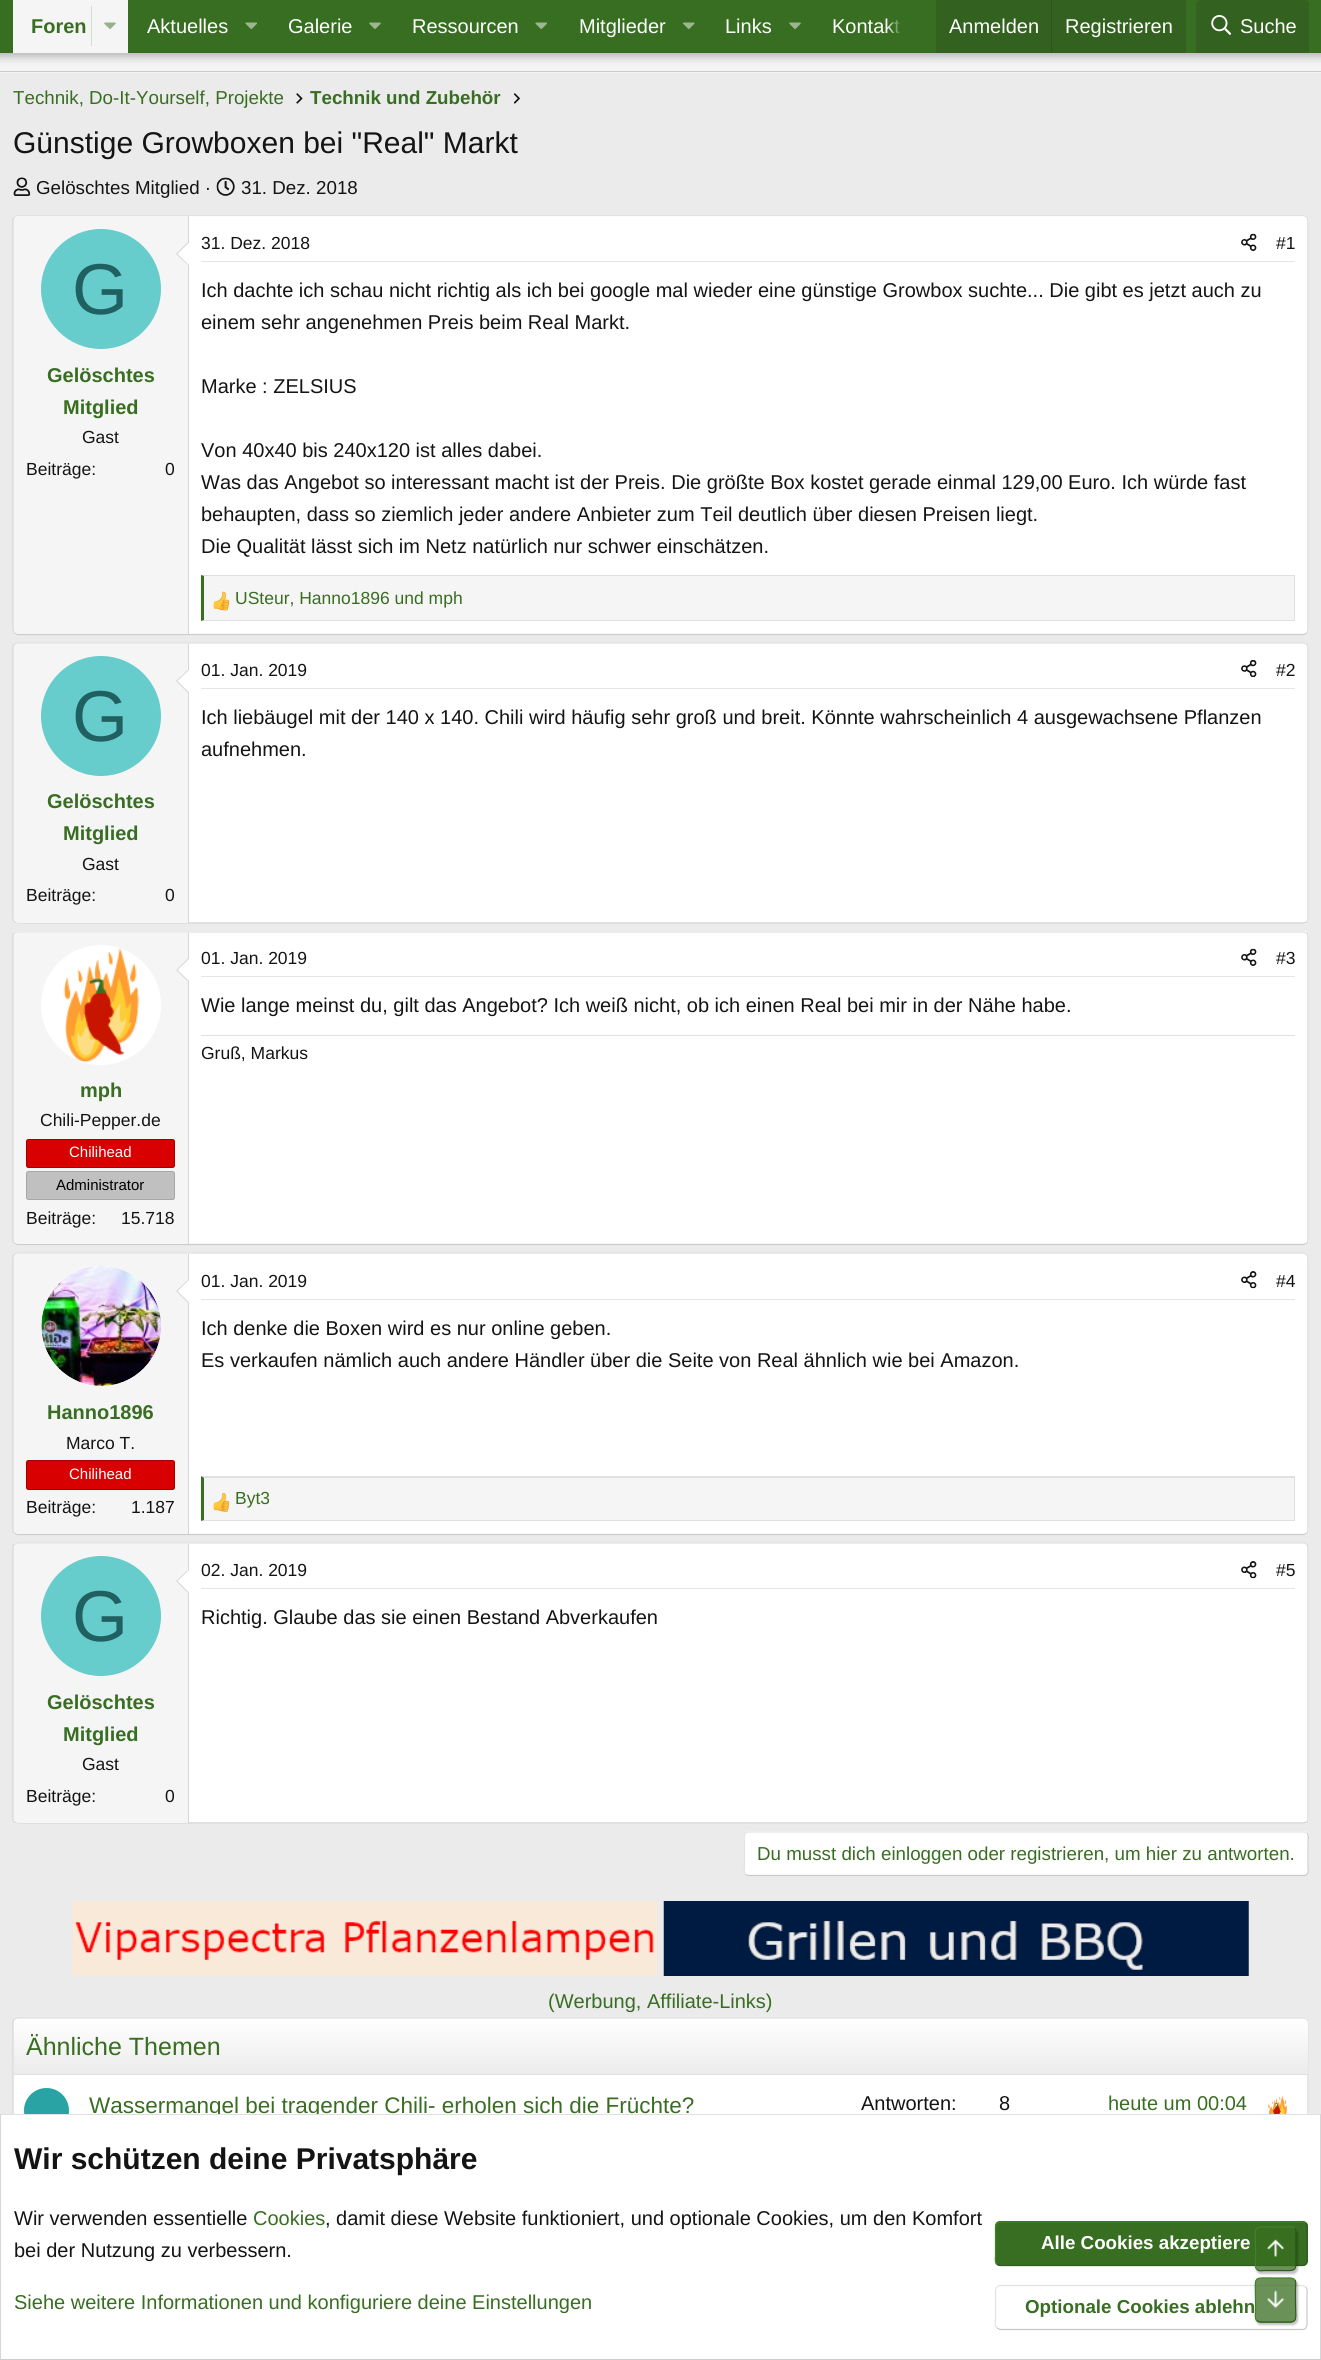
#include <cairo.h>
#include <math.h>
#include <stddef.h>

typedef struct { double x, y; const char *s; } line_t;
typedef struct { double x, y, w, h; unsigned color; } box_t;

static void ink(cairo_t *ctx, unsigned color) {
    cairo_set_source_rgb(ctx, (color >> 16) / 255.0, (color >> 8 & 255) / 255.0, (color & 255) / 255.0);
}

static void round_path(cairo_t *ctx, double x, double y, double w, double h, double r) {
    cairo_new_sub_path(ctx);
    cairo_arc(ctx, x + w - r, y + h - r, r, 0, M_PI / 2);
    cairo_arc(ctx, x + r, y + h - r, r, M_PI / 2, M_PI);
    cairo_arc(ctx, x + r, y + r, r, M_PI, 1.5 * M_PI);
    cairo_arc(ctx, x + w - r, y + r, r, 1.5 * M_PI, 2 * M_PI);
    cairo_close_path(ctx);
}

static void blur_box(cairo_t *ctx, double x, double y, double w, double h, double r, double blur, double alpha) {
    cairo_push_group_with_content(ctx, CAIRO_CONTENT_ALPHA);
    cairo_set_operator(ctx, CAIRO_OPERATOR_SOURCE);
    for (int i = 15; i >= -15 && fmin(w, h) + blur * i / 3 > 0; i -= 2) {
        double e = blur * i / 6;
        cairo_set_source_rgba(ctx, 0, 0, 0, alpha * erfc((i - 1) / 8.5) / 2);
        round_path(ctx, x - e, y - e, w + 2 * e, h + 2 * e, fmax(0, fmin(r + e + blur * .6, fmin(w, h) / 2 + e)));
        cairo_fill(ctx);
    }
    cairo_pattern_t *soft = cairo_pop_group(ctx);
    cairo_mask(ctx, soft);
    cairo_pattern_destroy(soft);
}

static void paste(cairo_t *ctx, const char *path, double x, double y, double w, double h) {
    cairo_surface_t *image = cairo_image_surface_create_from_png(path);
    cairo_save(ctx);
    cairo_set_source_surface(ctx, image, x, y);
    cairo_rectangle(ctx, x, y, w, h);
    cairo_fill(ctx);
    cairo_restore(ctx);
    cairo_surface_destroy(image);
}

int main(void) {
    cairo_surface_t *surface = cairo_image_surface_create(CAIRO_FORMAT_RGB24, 1321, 2360);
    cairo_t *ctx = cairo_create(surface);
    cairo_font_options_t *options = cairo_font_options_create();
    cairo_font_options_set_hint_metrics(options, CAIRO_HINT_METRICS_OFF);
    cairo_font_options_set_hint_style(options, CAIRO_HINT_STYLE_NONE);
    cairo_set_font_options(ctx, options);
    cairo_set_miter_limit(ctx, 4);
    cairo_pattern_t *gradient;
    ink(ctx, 0xEBEBEB);
    cairo_paint(ctx);
    ink(ctx, 0xF5F5F5);
    cairo_rectangle(ctx, 0, 53, 1321, 20);
    cairo_fill(ctx);
    ink(ctx, 0xCCCCCC);
    cairo_rectangle(ctx, 0, 71, 1321, 1);
    cairo_fill(ctx);
    ink(ctx, 0x000000);
    blur_box(ctx, -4, -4, 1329, 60, 0, 5, 0.3);
    ink(ctx, 0x386E21);
    cairo_rectangle(ctx, 0, 0, 1321, 53);
    cairo_fill(ctx);
    ink(ctx, 0xF5F5F5);
    cairo_rectangle(ctx, 13, 0, 115, 53);
    cairo_fill(ctx);
    cairo_select_font_face(ctx, "Liberation Sans", CAIRO_FONT_SLANT_NORMAL, CAIRO_FONT_WEIGHT_BOLD);
    cairo_set_font_size(ctx, 20);
    ink(ctx, 0x386E21);
    cairo_move_to(ctx, 31, 33);
    cairo_show_text(ctx, "Foren");
    ink(ctx, 0xD4DED0);
    cairo_rectangle(ctx, 91, 6, 1, 40);
    cairo_fill(ctx);
    paste(ctx, "media/1.png", 104, 22, 12, 7);
    cairo_select_font_face(ctx, "Liberation Sans", CAIRO_FONT_SLANT_NORMAL, CAIRO_FONT_WEIGHT_NORMAL);
    ink(ctx, 0xFFFFFF);
    cairo_move_to(ctx, 147, 33);
    cairo_show_text(ctx, "Aktuelles");
    paste(ctx, "media/2.png", 245, 22, 12, 7);
    cairo_move_to(ctx, 288, 33);
    cairo_show_text(ctx, "Galerie");
    paste(ctx, "media/3.png", 369, 22, 12, 7);
    cairo_move_to(ctx, 412, 33);
    cairo_show_text(ctx, "Ressourcen");
    paste(ctx, "media/2.png", 535, 22, 12, 7);
    cairo_move_to(ctx, 579, 33);
    cairo_show_text(ctx, "Mitglieder");
    paste(ctx, "media/4.png", 683, 22, 12, 7);
    cairo_move_to(ctx, 725, 33);
    cairo_show_text(ctx, "Links");
    paste(ctx, "media/3.png", 789, 22, 12, 7);
    cairo_move_to(ctx, 832, 33);
    cairo_show_text(ctx, "Kontakt");
    gradient = cairo_pattern_create_linear(886, 26, 936, 26);
    cairo_pattern_add_color_stop_rgba(gradient, 0, 0.22, 0.431, 0.129, 0);
    cairo_pattern_add_color_stop_rgba(gradient, 0.33, 0.22, 0.431, 0.129, 1);
    cairo_set_source(ctx, gradient);
    cairo_pattern_destroy(gradient);
    cairo_rectangle(ctx, 886, 18, 14, 16);
    cairo_fill(ctx);
    ink(ctx, 0x33611F);
    cairo_rectangle(ctx, 936, 0, 250, 53);
    cairo_fill(ctx);
    ink(ctx, 0xFFFFFF);
    cairo_move_to(ctx, 949, 33);
    cairo_show_text(ctx, "Anmelden");
    ink(ctx, 0x2E551D);
    cairo_rectangle(ctx, 1051, 0, 1, 53);
    cairo_fill(ctx);
    ink(ctx, 0xFFFFFF);
    cairo_move_to(ctx, 1065, 33);
    cairo_show_text(ctx, "Registrieren");
    ink(ctx, 0x33611F);
    cairo_new_path(ctx);
    cairo_move_to(ctx, 1201, 0);
    cairo_line_to(ctx, 1304, 0);
    cairo_curve_to(ctx, 1307, 0, 1309, 2, 1309, 5);
    cairo_line_to(ctx, 1309, 53);
    cairo_line_to(ctx, 1196, 53);
    cairo_line_to(ctx, 1196, 5);
    cairo_curve_to(ctx, 1196, 2, 1198, 0, 1201, 0);
    cairo_close_path(ctx);
    cairo_fill(ctx);
    paste(ctx, "media/5.png", 1211, 15, 20, 20);
    ink(ctx, 0xFFFFFF);
    cairo_move_to(ctx, 1240, 33);
    cairo_show_text(ctx, "Suche");
    cairo_set_font_size(ctx, 18.75);
    ink(ctx, 0x386E21);
    cairo_move_to(ctx, 13, 104);
    cairo_show_text(ctx, "Technik, Do-It-Yourself, Projekte");
    paste(ctx, "media/6.png", 296, 93, 7, 11);
    cairo_select_font_face(ctx, "Liberation Sans", CAIRO_FONT_SLANT_NORMAL, CAIRO_FONT_WEIGHT_BOLD);
    cairo_move_to(ctx, 310, 104);
    cairo_show_text(ctx, "Technik und Zubehör");
    paste(ctx, "media/7.png", 514, 93, 6, 11);
    cairo_select_font_face(ctx, "Liberation Sans", CAIRO_FONT_SLANT_NORMAL, CAIRO_FONT_WEIGHT_NORMAL);
    cairo_set_font_size(ctx, 30);
    ink(ctx, 0x141414);
    cairo_move_to(ctx, 13, 153);
    cairo_show_text(ctx, "Günstige Growboxen bei \"Real\" Markt");
    paste(ctx, "media/8.png", 13, 177, 18, 19);
    cairo_set_font_size(ctx, 18.75);
    cairo_move_to(ctx, 36, 194);
    cairo_show_text(ctx, "Gelöschtes Mitglied ·");
    paste(ctx, "media/9.png", 216, 177, 19, 19);
    cairo_move_to(ctx, 241, 194);
    cairo_show_text(ctx, "31. Dez. 2018");
    ink(ctx, 0xFFFFFF);
    round_path(ctx, 13, 215, 1296, 420, 5);
    cairo_fill(ctx);
    cairo_new_path(ctx);
    cairo_move_to(ctx, 14.5, 217);
    cairo_line_to(ctx, 17.5, 215.5);
    cairo_line_to(ctx, 1304, 215.5);
    cairo_line_to(ctx, 1307, 217);
    ink(ctx, 0xE0E0E0);
    cairo_set_line_width(ctx, 1.2);
    cairo_stroke(ctx);
    cairo_new_path(ctx);
    cairo_move_to(ctx, 1307, 217);
    cairo_line_to(ctx, 1308, 220);
    cairo_line_to(ctx, 1308, 630);
    cairo_line_to(ctx, 1307, 633);
    ink(ctx, 0xD6D6D6);
    cairo_stroke(ctx);
    cairo_new_path(ctx);
    cairo_move_to(ctx, 1307, 633);
    cairo_line_to(ctx, 1304, 634.5);
    cairo_line_to(ctx, 17.5, 634.5);
    cairo_line_to(ctx, 14.5, 633);
    ink(ctx, 0xCCCCCC);
    cairo_stroke(ctx);
    cairo_new_path(ctx);
    cairo_move_to(ctx, 14.5, 633);
    cairo_line_to(ctx, 13, 630);
    cairo_line_to(ctx, 13, 220);
    cairo_line_to(ctx, 14.5, 217);
    ink(ctx, 0xD6D6D6);
    cairo_stroke(ctx);
    ink(ctx, 0xF5F5F5);
    cairo_new_path(ctx);
    cairo_move_to(ctx, 18, 216);
    cairo_line_to(ctx, 189, 216);
    cairo_line_to(ctx, 189, 634);
    cairo_line_to(ctx, 18, 634);
    cairo_curve_to(ctx, 16, 634, 14, 632, 14, 630);
    cairo_line_to(ctx, 14, 220);
    cairo_curve_to(ctx, 14, 218, 16, 216, 18, 216);
    cairo_close_path(ctx);
    cairo_fill(ctx);
    ink(ctx, 0xD6D6D6);
    cairo_rectangle(ctx, 188, 216, 1, 418);
    cairo_fill(ctx);
    cairo_new_path(ctx);
    cairo_move_to(ctx, 189, 241);
    cairo_line_to(ctx, 189, 266);
    cairo_line_to(ctx, 176, 254);
    cairo_close_path(ctx);
    cairo_fill(ctx);
    ink(ctx, 0xFFFFFF);
    cairo_new_path(ctx);
    cairo_move_to(ctx, 189, 242.5);
    cairo_line_to(ctx, 189, 265);
    cairo_line_to(ctx, 177.5, 254);
    cairo_close_path(ctx);
    cairo_fill(ctx);
    ink(ctx, 0x66CCCC);
    cairo_arc(ctx, 101, 289, 60, 0, 2 * M_PI);
    cairo_fill(ctx);
    cairo_set_font_size(ctx, 72);
    ink(ctx, 0x206060);
    cairo_move_to(ctx, 72, 314);
    cairo_show_text(ctx, "G");
    cairo_select_font_face(ctx, "Liberation Sans", CAIRO_FONT_SLANT_NORMAL, CAIRO_FONT_WEIGHT_BOLD);
    cairo_set_font_size(ctx, 20);
    ink(ctx, 0x386E21);
    cairo_move_to(ctx, 47, 382);
    cairo_show_text(ctx, "Gelöschtes");
    cairo_move_to(ctx, 63, 414);
    cairo_show_text(ctx, "Mitglied");
    cairo_select_font_face(ctx, "Liberation Sans", CAIRO_FONT_SLANT_NORMAL, CAIRO_FONT_WEIGHT_NORMAL);
    cairo_set_font_size(ctx, 17.5);
    ink(ctx, 0x141414);
    {
        static const line_t items[] = {
            {82, 443, "Gast"},
            {26, 475, "Beiträge:"},
            {165, 475, "0"},
        };
        for (size_t i = 0; i < sizeof items / sizeof *items; i++) {
            cairo_move_to(ctx, items[i].x, items[i].y);
            cairo_show_text(ctx, items[i].s);
        }
    }
    ink(ctx, 0xE5E5E5);
    cairo_rectangle(ctx, 201, 261, 1094, 1);
    cairo_fill(ctx);
    ink(ctx, 0x141414);
    cairo_move_to(ctx, 201, 249);
    cairo_show_text(ctx, "31. Dez. 2018");
    paste(ctx, "media/10.png", 1241, 233, 16, 18);
    cairo_move_to(ctx, 1276, 249);
    cairo_show_text(ctx, "#1");
    cairo_set_font_size(ctx, 20);
    {
        static const line_t items[] = {
            {201, 297, "Ich dachte ich schau nicht richtig als ich bei google mal wieder eine günstige Growbox suchte... Die gibt es jetzt auch zu"},
            {201, 329, "einem sehr angenehmen Preis beim Real Markt."},
            {201, 393, "Marke : ZELSIUS"},
            {201, 457, "Von 40x40 bis 240x120 ist alles dabei."},
            {201, 489, "Was das Angebot so interessant macht ist der Preis. Die größte Box kostet gerade einmal 129,00 Euro. Ich würde fast"},
            {201, 521, "behaupten, dass so ziemlich jeder andere Anbieter zum Teil deutlich über diesen Preisen liegt."},
            {201, 553, "Die Qualität lässt sich im Netz natürlich nur schwer einschätzen."},
        };
        for (size_t i = 0; i < sizeof items / sizeof *items; i++) {
            cairo_move_to(ctx, items[i].x, items[i].y);
            cairo_show_text(ctx, items[i].s);
        }
    }
    ink(ctx, 0xF5F5F5);
    cairo_rectangle(ctx, 204, 576, 1090, 44);
    cairo_fill(ctx);
    ink(ctx, 0xE0E0E0);
    cairo_new_path(ctx);
    cairo_move_to(ctx, 201, 575);
    cairo_line_to(ctx, 1295, 575);
    cairo_line_to(ctx, 1294, 576);
    cairo_line_to(ctx, 204, 576);
    cairo_close_path(ctx);
    cairo_fill(ctx);
    cairo_rectangle(ctx, 1294, 575, 1, 46);
    cairo_fill(ctx);
    cairo_new_path(ctx);
    cairo_move_to(ctx, 1295, 621);
    cairo_line_to(ctx, 201, 621);
    cairo_line_to(ctx, 204, 620);
    cairo_line_to(ctx, 1294, 620);
    cairo_close_path(ctx);
    cairo_fill(ctx);
    ink(ctx, 0x386E21);
    cairo_new_path(ctx);
    cairo_move_to(ctx, 201, 621);
    cairo_line_to(ctx, 201, 575);
    cairo_line_to(ctx, 204, 576);
    cairo_line_to(ctx, 204, 620);
    cairo_close_path(ctx);
    cairo_fill(ctx);
    paste(ctx, "media/11.png", 213, 591, 17, 20);
    cairo_set_font_size(ctx, 17.5);
    cairo_move_to(ctx, 235, 604);
    cairo_show_text(ctx, "USteur, Hanno1896 und mph");
    ink(ctx, 0xFFFFFF);
    round_path(ctx, 13, 643, 1296, 281, 5);
    cairo_fill(ctx);
    cairo_new_path(ctx);
    cairo_move_to(ctx, 14.5, 644.5);
    cairo_line_to(ctx, 17.5, 643);
    cairo_line_to(ctx, 1304, 643);
    cairo_line_to(ctx, 1307, 644.5);
    ink(ctx, 0xE0E0E0);
    cairo_stroke(ctx);
    cairo_new_path(ctx);
    cairo_move_to(ctx, 1307, 644.5);
    cairo_curve_to(ctx, 1307.5, 645, 1308, 646.5, 1308, 647.5);
    cairo_line_to(ctx, 1308, 919);
    cairo_curve_to(ctx, 1308, 920, 1307.5, 921, 1307, 922);
    ink(ctx, 0xD6D6D6);
    cairo_stroke(ctx);
    cairo_new_path(ctx);
    cairo_move_to(ctx, 1307, 922);
    cairo_line_to(ctx, 1304, 923);
    cairo_line_to(ctx, 17.5, 923);
    cairo_line_to(ctx, 14.5, 922);
    ink(ctx, 0xCCCCCC);
    cairo_stroke(ctx);
    cairo_new_path(ctx);
    cairo_move_to(ctx, 14.5, 922);
    cairo_curve_to(ctx, 13.5, 921, 13, 920, 13, 919);
    cairo_line_to(ctx, 13, 647.5);
    cairo_curve_to(ctx, 13, 646.5, 13.5, 645, 14.5, 644.5);
    ink(ctx, 0xD6D6D6);
    cairo_stroke(ctx);
    ink(ctx, 0xF5F5F5);
    cairo_new_path(ctx);
    cairo_move_to(ctx, 18, 644);
    cairo_line_to(ctx, 189, 644);
    cairo_line_to(ctx, 189, 923);
    cairo_line_to(ctx, 18, 923);
    cairo_curve_to(ctx, 16, 923, 14, 921, 14, 919);
    cairo_line_to(ctx, 14, 648);
    cairo_curve_to(ctx, 14, 646, 16, 644, 18, 644);
    cairo_close_path(ctx);
    cairo_fill(ctx);
    ink(ctx, 0xD6D6D6);
    cairo_rectangle(ctx, 188, 644, 1, 279);
    cairo_fill(ctx);
    cairo_new_path(ctx);
    cairo_move_to(ctx, 189, 669);
    cairo_line_to(ctx, 189, 694);
    cairo_line_to(ctx, 176, 681);
    cairo_close_path(ctx);
    cairo_fill(ctx);
    ink(ctx, 0xFFFFFF);
    cairo_new_path(ctx);
    cairo_move_to(ctx, 189, 670);
    cairo_line_to(ctx, 189, 692.5);
    cairo_line_to(ctx, 177.5, 681);
    cairo_close_path(ctx);
    cairo_fill(ctx);
    ink(ctx, 0x66CCCC);
    cairo_arc(ctx, 101, 716, 60, 0, 2 * M_PI);
    cairo_fill(ctx);
    cairo_set_font_size(ctx, 72);
    ink(ctx, 0x206060);
    cairo_move_to(ctx, 72, 741);
    cairo_show_text(ctx, "G");
    cairo_select_font_face(ctx, "Liberation Sans", CAIRO_FONT_SLANT_NORMAL, CAIRO_FONT_WEIGHT_BOLD);
    cairo_set_font_size(ctx, 20);
    ink(ctx, 0x386E21);
    cairo_move_to(ctx, 47, 808);
    cairo_show_text(ctx, "Gelöschtes");
    cairo_move_to(ctx, 63, 840);
    cairo_show_text(ctx, "Mitglied");
    cairo_select_font_face(ctx, "Liberation Sans", CAIRO_FONT_SLANT_NORMAL, CAIRO_FONT_WEIGHT_NORMAL);
    cairo_set_font_size(ctx, 17.5);
    ink(ctx, 0x141414);
    {
        static const line_t items[] = {
            {82, 870, "Gast"},
            {26, 901, "Beiträge:"},
            {165, 901, "0"},
        };
        for (size_t i = 0; i < sizeof items / sizeof *items; i++) {
            cairo_move_to(ctx, items[i].x, items[i].y);
            cairo_show_text(ctx, items[i].s);
        }
    }
    ink(ctx, 0xE5E5E5);
    cairo_rectangle(ctx, 201, 688, 1094, 1);
    cairo_fill(ctx);
    ink(ctx, 0x141414);
    cairo_move_to(ctx, 201, 676);
    cairo_show_text(ctx, "01. Jan. 2019");
    paste(ctx, "media/12.png", 1241, 660, 16, 17);
    cairo_move_to(ctx, 1276, 676);
    cairo_show_text(ctx, "#2");
    cairo_set_font_size(ctx, 20);
    cairo_move_to(ctx, 201, 724);
    cairo_show_text(ctx, "Ich liebäugel mit der 140 x 140. Chili wird häufig sehr groß und breit. Könnte wahrscheinlich 4 ausgewachsene Pflanzen");
    cairo_move_to(ctx, 201, 756);
    cairo_show_text(ctx, "aufnehmen.");
    ink(ctx, 0xFFFFFF);
    round_path(ctx, 13, 931, 1296, 314, 5);
    cairo_fill(ctx);
    cairo_new_path(ctx);
    cairo_move_to(ctx, 14.5, 933);
    cairo_line_to(ctx, 17.5, 932);
    cairo_line_to(ctx, 1304, 932);
    cairo_line_to(ctx, 1307, 933);
    ink(ctx, 0xE0E0E0);
    cairo_stroke(ctx);
    cairo_new_path(ctx);
    cairo_move_to(ctx, 1307, 933);
    cairo_curve_to(ctx, 1307.5, 934, 1308, 935, 1308, 936);
    cairo_line_to(ctx, 1308, 1240);
    cairo_curve_to(ctx, 1308, 1241, 1307.5, 1242.5, 1307, 1243);
    ink(ctx, 0xD6D6D6);
    cairo_stroke(ctx);
    cairo_new_path(ctx);
    cairo_move_to(ctx, 1307, 1243);
    cairo_line_to(ctx, 1304, 1244.5);
    cairo_line_to(ctx, 17.5, 1244.5);
    cairo_line_to(ctx, 14.5, 1243);
    ink(ctx, 0xCCCCCC);
    cairo_stroke(ctx);
    cairo_new_path(ctx);
    cairo_move_to(ctx, 14.5, 1243);
    cairo_curve_to(ctx, 13.5, 1242.5, 13, 1241, 13, 1240);
    cairo_line_to(ctx, 13, 936);
    cairo_curve_to(ctx, 13, 935, 13.5, 934, 14.5, 933);
    ink(ctx, 0xD6D6D6);
    cairo_stroke(ctx);
    ink(ctx, 0xE5E5E5);
    cairo_rectangle(ctx, 201, 976, 1094, 1);
    cairo_fill(ctx);
    cairo_set_font_size(ctx, 17.5);
    ink(ctx, 0x141414);
    cairo_move_to(ctx, 201, 964);
    cairo_show_text(ctx, "01. Jan. 2019");
    paste(ctx, "media/10.png", 1241, 948, 16, 18);
    cairo_move_to(ctx, 1276, 964);
    cairo_show_text(ctx, "#3");
    cairo_set_font_size(ctx, 20);
    cairo_move_to(ctx, 201, 1012);
    cairo_show_text(ctx, "Wie lange meinst du, gilt das Angebot? Ich weiß nicht, ob ich einen Real bei mir in der Nähe habe.");
    ink(ctx, 0xE0E0E0);
    cairo_rectangle(ctx, 201, 1035, 1094, 1);
    cairo_fill(ctx);
    cairo_set_font_size(ctx, 17.5);
    ink(ctx, 0x141414);
    cairo_move_to(ctx, 201, 1059);
    cairo_show_text(ctx, "Gruß, Markus");
    ink(ctx, 0xF5F5F5);
    cairo_new_path(ctx);
    cairo_move_to(ctx, 18, 933);
    cairo_line_to(ctx, 189, 933);
    cairo_line_to(ctx, 189, 1244);
    cairo_line_to(ctx, 18, 1244);
    cairo_curve_to(ctx, 16, 1244, 14, 1242, 14, 1240);
    cairo_line_to(ctx, 14, 937);
    cairo_curve_to(ctx, 14, 935, 16, 933, 18, 933);
    cairo_close_path(ctx);
    cairo_fill(ctx);
    ink(ctx, 0xD6D6D6);
    cairo_rectangle(ctx, 188, 933, 1, 311);
    cairo_fill(ctx);
    ink(ctx, 0xFFFFFF);
    cairo_arc(ctx, 101, 1005, 60, 0, 2 * M_PI);
    cairo_fill(ctx);
    paste(ctx, "media/13.png", 63, 948, 76, 115);
    ink(ctx, 0xD6D6D6);
    cairo_new_path(ctx);
    cairo_move_to(ctx, 189, 957.5);
    cairo_line_to(ctx, 189, 982.5);
    cairo_line_to(ctx, 176, 970);
    cairo_close_path(ctx);
    cairo_fill(ctx);
    ink(ctx, 0xFFFFFF);
    cairo_new_path(ctx);
    cairo_move_to(ctx, 189, 959);
    cairo_line_to(ctx, 189, 981);
    cairo_line_to(ctx, 177.5, 970);
    cairo_close_path(ctx);
    cairo_fill(ctx);
    cairo_select_font_face(ctx, "Liberation Sans", CAIRO_FONT_SLANT_NORMAL, CAIRO_FONT_WEIGHT_BOLD);
    cairo_set_font_size(ctx, 20);
    ink(ctx, 0x386E21);
    cairo_move_to(ctx, 80, 1097);
    cairo_show_text(ctx, "mph");
    cairo_select_font_face(ctx, "Liberation Sans", CAIRO_FONT_SLANT_NORMAL, CAIRO_FONT_WEIGHT_NORMAL);
    cairo_set_font_size(ctx, 17.5);
    ink(ctx, 0x141414);
    cairo_move_to(ctx, 40, 1126);
    cairo_show_text(ctx, "Chili-Pepper.de");
    ink(ctx, 0xD80000);
    round_path(ctx, 26.5, 1139.5, 148, 28, 2);
    cairo_fill_preserve(ctx);
    ink(ctx, 0xA50000);
    cairo_set_line_width(ctx, 1);
    cairo_stroke(ctx);
    cairo_set_font_size(ctx, 15);
    ink(ctx, 0xFFFFFF);
    cairo_move_to(ctx, 69, 1157);
    cairo_show_text(ctx, "Chilihead");
    ink(ctx, 0xC0C0C0);
    round_path(ctx, 26.5, 1171.5, 148, 28, 2);
    cairo_fill_preserve(ctx);
    ink(ctx, 0xA7A7A7);
    cairo_stroke(ctx);
    ink(ctx, 0x000000);
    cairo_move_to(ctx, 56, 1190);
    cairo_show_text(ctx, "Administrator");
    cairo_set_font_size(ctx, 17.5);
    ink(ctx, 0x141414);
    cairo_move_to(ctx, 26, 1224);
    cairo_show_text(ctx, "Beiträge:");
    cairo_move_to(ctx, 121, 1224);
    cairo_show_text(ctx, "15.718");
    ink(ctx, 0xFFFFFF);
    round_path(ctx, 13, 1253, 1296, 282, 5);
    cairo_fill(ctx);
    cairo_new_path(ctx);
    cairo_move_to(ctx, 14.5, 1254.5);
    cairo_line_to(ctx, 17.5, 1253);
    cairo_line_to(ctx, 1304, 1253);
    cairo_line_to(ctx, 1307, 1254.5);
    ink(ctx, 0xE0E0E0);
    cairo_set_line_width(ctx, 1.2);
    cairo_stroke(ctx);
    cairo_new_path(ctx);
    cairo_move_to(ctx, 1307, 1254.5);
    cairo_curve_to(ctx, 1307.5, 1255, 1308, 1256.5, 1308, 1257.5);
    cairo_line_to(ctx, 1308, 1530);
    cairo_curve_to(ctx, 1308, 1531, 1307.5, 1532.5, 1307, 1533);
    ink(ctx, 0xD6D6D6);
    cairo_stroke(ctx);
    cairo_new_path(ctx);
    cairo_move_to(ctx, 1307, 1533);
    cairo_line_to(ctx, 1304, 1534.5);
    cairo_line_to(ctx, 17.5, 1534.5);
    cairo_line_to(ctx, 14.5, 1533);
    ink(ctx, 0xCCCCCC);
    cairo_stroke(ctx);
    cairo_new_path(ctx);
    cairo_move_to(ctx, 14.5, 1533);
    cairo_curve_to(ctx, 13.5, 1532.5, 13, 1531, 13, 1530);
    cairo_line_to(ctx, 13, 1257.5);
    cairo_curve_to(ctx, 13, 1256.5, 13.5, 1255, 14.5, 1254.5);
    ink(ctx, 0xD6D6D6);
    cairo_stroke(ctx);
    ink(ctx, 0xF5F5F5);
    cairo_new_path(ctx);
    cairo_move_to(ctx, 18, 1254);
    cairo_line_to(ctx, 189, 1254);
    cairo_line_to(ctx, 189, 1534);
    cairo_line_to(ctx, 18, 1534);
    cairo_curve_to(ctx, 16, 1534, 14, 1532, 14, 1530);
    cairo_line_to(ctx, 14, 1258);
    cairo_curve_to(ctx, 14, 1256, 16, 1254, 18, 1254);
    cairo_close_path(ctx);
    cairo_fill(ctx);
    ink(ctx, 0xD6D6D6);
    cairo_rectangle(ctx, 188, 1254, 1, 280);
    cairo_fill(ctx);
    ink(ctx, 0xFFFFFF);
    cairo_arc(ctx, 101, 1326, 60, 0, 2 * M_PI);
    cairo_fill(ctx);
    paste(ctx, "media/14.png", 41, 1266, 120, 120);
    ink(ctx, 0xD6D6D6);
    cairo_new_path(ctx);
    cairo_move_to(ctx, 189, 1279);
    cairo_line_to(ctx, 189, 1304);
    cairo_line_to(ctx, 176, 1291);
    cairo_close_path(ctx);
    cairo_fill(ctx);
    ink(ctx, 0xFFFFFF);
    cairo_new_path(ctx);
    cairo_move_to(ctx, 189, 1280);
    cairo_line_to(ctx, 189, 1302.5);
    cairo_line_to(ctx, 177.5, 1291);
    cairo_close_path(ctx);
    cairo_fill(ctx);
    cairo_select_font_face(ctx, "Liberation Sans", CAIRO_FONT_SLANT_NORMAL, CAIRO_FONT_WEIGHT_BOLD);
    cairo_set_font_size(ctx, 20);
    ink(ctx, 0x386E21);
    cairo_move_to(ctx, 47, 1419);
    cairo_show_text(ctx, "Hanno1896");
    cairo_select_font_face(ctx, "Liberation Sans", CAIRO_FONT_SLANT_NORMAL, CAIRO_FONT_WEIGHT_NORMAL);
    cairo_set_font_size(ctx, 17.5);
    ink(ctx, 0x141414);
    cairo_move_to(ctx, 66, 1449);
    cairo_show_text(ctx, "Marco T.");
    ink(ctx, 0xD80000);
    round_path(ctx, 26.5, 1460.5, 148, 29, 2);
    cairo_fill_preserve(ctx);
    ink(ctx, 0xA50000);
    cairo_set_line_width(ctx, 1);
    cairo_stroke(ctx);
    cairo_set_font_size(ctx, 15);
    ink(ctx, 0xFFFFFF);
    cairo_move_to(ctx, 69, 1479);
    cairo_show_text(ctx, "Chilihead");
    cairo_set_font_size(ctx, 17.5);
    ink(ctx, 0x141414);
    cairo_move_to(ctx, 26, 1513);
    cairo_show_text(ctx, "Beiträge:");
    cairo_move_to(ctx, 131, 1513);
    cairo_show_text(ctx, "1.187");
    ink(ctx, 0xE5E5E5);
    cairo_rectangle(ctx, 201, 1299, 1094, 1);
    cairo_fill(ctx);
    ink(ctx, 0x141414);
    cairo_move_to(ctx, 201, 1287);
    cairo_show_text(ctx, "01. Jan. 2019");
    paste(ctx, "media/15.png", 1241, 1271, 16, 18);
    cairo_move_to(ctx, 1276, 1287);
    cairo_show_text(ctx, "#4");
    cairo_set_font_size(ctx, 20);
    cairo_move_to(ctx, 201, 1335);
    cairo_show_text(ctx, "Ich denke die Boxen wird es nur online geben.");
    cairo_move_to(ctx, 201, 1367);
    cairo_show_text(ctx, "Es verkaufen nämlich auch andere Händler über die Seite von Real ähnlich wie bei Amazon.");
    ink(ctx, 0xF5F5F5);
    cairo_rectangle(ctx, 204, 1478, 1090, 42);
    cairo_fill(ctx);
    ink(ctx, 0xE0E0E0);
    cairo_new_path(ctx);
    cairo_move_to(ctx, 201, 1476);
    cairo_line_to(ctx, 1295, 1476);
    cairo_line_to(ctx, 1294, 1478);
    cairo_line_to(ctx, 204, 1478);
    cairo_close_path(ctx);
    cairo_fill(ctx);
    cairo_rectangle(ctx, 1294, 1476, 1, 45);
    cairo_fill(ctx);
    cairo_new_path(ctx);
    cairo_move_to(ctx, 1295, 1521);
    cairo_line_to(ctx, 201, 1521);
    cairo_line_to(ctx, 204, 1520);
    cairo_line_to(ctx, 1294, 1520);
    cairo_close_path(ctx);
    cairo_fill(ctx);
    ink(ctx, 0x386E21);
    cairo_new_path(ctx);
    cairo_move_to(ctx, 201, 1521);
    cairo_line_to(ctx, 201, 1476);
    cairo_line_to(ctx, 204, 1478);
    cairo_line_to(ctx, 204, 1520);
    cairo_close_path(ctx);
    cairo_fill(ctx);
    paste(ctx, "media/16.png", 213, 1493, 17, 19);
    cairo_set_font_size(ctx, 17.5);
    cairo_move_to(ctx, 235, 1504);
    cairo_show_text(ctx, "Byt3");
    ink(ctx, 0xFFFFFF);
    round_path(ctx, 13, 1543, 1296, 281, 5);
    cairo_fill(ctx);
    cairo_new_path(ctx);
    cairo_move_to(ctx, 14.5, 1544.5);
    cairo_line_to(ctx, 17.5, 1543);
    cairo_line_to(ctx, 1304, 1543);
    cairo_line_to(ctx, 1307, 1544.5);
    ink(ctx, 0xE0E0E0);
    cairo_set_line_width(ctx, 1.2);
    cairo_stroke(ctx);
    cairo_new_path(ctx);
    cairo_move_to(ctx, 1307, 1544.5);
    cairo_curve_to(ctx, 1307.5, 1545, 1308, 1546.5, 1308, 1547.5);
    cairo_line_to(ctx, 1308, 1819);
    cairo_curve_to(ctx, 1308, 1820, 1307.5, 1821, 1307, 1822);
    ink(ctx, 0xD6D6D6);
    cairo_stroke(ctx);
    cairo_new_path(ctx);
    cairo_move_to(ctx, 1307, 1822);
    cairo_line_to(ctx, 1304, 1823);
    cairo_line_to(ctx, 17.5, 1823);
    cairo_line_to(ctx, 14.5, 1822);
    ink(ctx, 0xCCCCCC);
    cairo_stroke(ctx);
    cairo_new_path(ctx);
    cairo_move_to(ctx, 14.5, 1822);
    cairo_curve_to(ctx, 13.5, 1821, 13, 1820, 13, 1819);
    cairo_line_to(ctx, 13, 1547.5);
    cairo_curve_to(ctx, 13, 1546.5, 13.5, 1545, 14.5, 1544.5);
    ink(ctx, 0xD6D6D6);
    cairo_stroke(ctx);
    ink(ctx, 0xF5F5F5);
    cairo_new_path(ctx);
    cairo_move_to(ctx, 18, 1544);
    cairo_line_to(ctx, 189, 1544);
    cairo_line_to(ctx, 189, 1823);
    cairo_line_to(ctx, 18, 1823);
    cairo_curve_to(ctx, 16, 1823, 14, 1821, 14, 1819);
    cairo_line_to(ctx, 14, 1548);
    cairo_curve_to(ctx, 14, 1546, 16, 1544, 18, 1544);
    cairo_close_path(ctx);
    cairo_fill(ctx);
    ink(ctx, 0xD6D6D6);
    cairo_rectangle(ctx, 188, 1544, 1, 279);
    cairo_fill(ctx);
    cairo_new_path(ctx);
    cairo_move_to(ctx, 189, 1569);
    cairo_line_to(ctx, 189, 1594);
    cairo_line_to(ctx, 176, 1581);
    cairo_close_path(ctx);
    cairo_fill(ctx);
    ink(ctx, 0xFFFFFF);
    cairo_new_path(ctx);
    cairo_move_to(ctx, 189, 1570);
    cairo_line_to(ctx, 189, 1592.5);
    cairo_line_to(ctx, 177.5, 1581);
    cairo_close_path(ctx);
    cairo_fill(ctx);
    ink(ctx, 0x66CCCC);
    cairo_arc(ctx, 101, 1616, 60, 0, 2 * M_PI);
    cairo_fill(ctx);
    cairo_set_font_size(ctx, 72);
    ink(ctx, 0x206060);
    cairo_move_to(ctx, 72, 1641);
    cairo_show_text(ctx, "G");
    cairo_select_font_face(ctx, "Liberation Sans", CAIRO_FONT_SLANT_NORMAL, CAIRO_FONT_WEIGHT_BOLD);
    cairo_set_font_size(ctx, 20);
    ink(ctx, 0x386E21);
    cairo_move_to(ctx, 47, 1709);
    cairo_show_text(ctx, "Gelöschtes");
    cairo_move_to(ctx, 63, 1741);
    cairo_show_text(ctx, "Mitglied");
    cairo_select_font_face(ctx, "Liberation Sans", CAIRO_FONT_SLANT_NORMAL, CAIRO_FONT_WEIGHT_NORMAL);
    cairo_set_font_size(ctx, 17.5);
    ink(ctx, 0x141414);
    {
        static const line_t items[] = {
            {82, 1770, "Gast"},
            {26, 1802, "Beiträge:"},
            {165, 1802, "0"},
        };
        for (size_t i = 0; i < sizeof items / sizeof *items; i++) {
            cairo_move_to(ctx, items[i].x, items[i].y);
            cairo_show_text(ctx, items[i].s);
        }
    }
    ink(ctx, 0xE5E5E5);
    cairo_rectangle(ctx, 201, 1588, 1094, 1);
    cairo_fill(ctx);
    ink(ctx, 0x141414);
    cairo_move_to(ctx, 201, 1576);
    cairo_show_text(ctx, "02. Jan. 2019");
    paste(ctx, "media/15.png", 1241, 1561, 16, 18);
    cairo_move_to(ctx, 1276, 1576);
    cairo_show_text(ctx, "#5");
    cairo_set_font_size(ctx, 20);
    cairo_move_to(ctx, 201, 1624);
    cairo_show_text(ctx, "Richtig. Glaube das sie einen Bestand Abverkaufen");
    ink(ctx, 0xFFFFFF);
    round_path(ctx, 744, 1831, 565, 45, 5);
    cairo_fill(ctx);
    cairo_new_path(ctx);
    cairo_move_to(ctx, 1307, 1833);
    cairo_curve_to(ctx, 1309, 1835.5, 1308, 1839.5, 1308, 1842);
    cairo_line_to(ctx, 1308, 1865.5);
    cairo_curve_to(ctx, 1308, 1868.5, 1309.5, 1874, 1305, 1875.5);
    cairo_line_to(ctx, 749, 1875.5);
    cairo_line_to(ctx, 745.5, 1874.5);
    ink(ctx, 0xC9C9C9);
    cairo_stroke(ctx);
    cairo_new_path(ctx);
    cairo_move_to(ctx, 745.5, 1874.5);
    cairo_curve_to(ctx, 743.5, 1872, 744.5, 1868, 744.5, 1865.5);
    cairo_line_to(ctx, 744.5, 1842);
    cairo_curve_to(ctx, 744.5, 1839, 743, 1833.5, 747.5, 1832);
    cairo_line_to(ctx, 1304, 1832);
    cairo_line_to(ctx, 1307, 1833);
    ink(ctx, 0xE3E3E3);
    cairo_stroke(ctx);
    cairo_set_font_size(ctx, 18.75);
    ink(ctx, 0x386E21);
    cairo_move_to(ctx, 757, 1860);
    cairo_show_text(ctx, "Du musst dich einloggen oder registrieren, um hier zu antworten.");
    paste(ctx, "media/17.png", 72, 1901, 586, 75);
    paste(ctx, "media/18.png", 663, 1901, 586, 75);
    cairo_set_font_size(ctx, 20);
    cairo_move_to(ctx, 548, 2008);
    cairo_show_text(ctx, "(Werbung, Affiliate-Links)");
    ink(ctx, 0xFFFFFF);
    round_path(ctx, 13, 2018, 1296, 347, 5);
    cairo_fill(ctx);
    cairo_new_path(ctx);
    cairo_move_to(ctx, 14.5, 2019.5);
    cairo_line_to(ctx, 17.5, 2018);
    cairo_line_to(ctx, 1304, 2018);
    cairo_line_to(ctx, 1307, 2019.5);
    ink(ctx, 0xE0E0E0);
    cairo_stroke(ctx);
    cairo_new_path(ctx);
    cairo_move_to(ctx, 1307, 2019.5);
    cairo_curve_to(ctx, 1307.5, 2020, 1308, 2021.5, 1308, 2022.5);
    cairo_line_to(ctx, 1308, 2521);
    cairo_curve_to(ctx, 1308, 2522.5, 1307.5, 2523.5, 1307, 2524.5);
    ink(ctx, 0xD6D6D6);
    cairo_stroke(ctx);
    cairo_new_path(ctx);
    cairo_move_to(ctx, 14.5, 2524.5);
    cairo_curve_to(ctx, 13.5, 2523.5, 13, 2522.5, 13, 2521);
    cairo_line_to(ctx, 13, 2022.5);
    cairo_curve_to(ctx, 13, 2021.5, 13.5, 2020, 14.5, 2019.5);
    cairo_stroke(ctx);
    gradient = cairo_pattern_create_linear(661, 2074, 661, 2019);
    cairo_pattern_add_color_stop_rgba(gradient, 0, 0.922, 0.922, 0.922, 1);
    cairo_pattern_add_color_stop_rgba(gradient, 1, 1, 1, 1, 1);
    cairo_set_source(ctx, gradient);
    cairo_pattern_destroy(gradient);
    cairo_new_path(ctx);
    cairo_move_to(ctx, 18, 2019);
    cairo_line_to(ctx, 1304, 2019);
    cairo_curve_to(ctx, 1306, 2019, 1308, 2021, 1308, 2023);
    cairo_line_to(ctx, 1308, 2074);
    cairo_line_to(ctx, 14, 2074);
    cairo_line_to(ctx, 14, 2023);
    cairo_curve_to(ctx, 14, 2021, 16, 2019, 18, 2019);
    cairo_close_path(ctx);
    cairo_fill(ctx);
    ink(ctx, 0xE0E0E0);
    cairo_rectangle(ctx, 14, 2074, 1294, 1);
    cairo_fill(ctx);
    cairo_set_font_size(ctx, 25);
    ink(ctx, 0x386E21);
    cairo_move_to(ctx, 26, 2055);
    cairo_show_text(ctx, "Ähnliche Themen");
    ink(ctx, 0x29A3A3);
    cairo_new_path(ctx);
    cairo_arc(ctx, 46.5, 2110.5, 22.5, 0, 2 * M_PI);
    cairo_fill(ctx);
    cairo_set_font_size(ctx, 22.5);
    ink(ctx, 0x386E21);
    cairo_move_to(ctx, 89, 2113);
    cairo_show_text(ctx, "Wassermangel bei tragender Chili- erholen sich die Früchte?");
    cairo_set_font_size(ctx, 20);
    ink(ctx, 0x141414);
    cairo_move_to(ctx, 861, 2110);
    cairo_show_text(ctx, "Antworten:");
    cairo_move_to(ctx, 999, 2110);
    cairo_show_text(ctx, "8");
    ink(ctx, 0x386E21);
    cairo_move_to(ctx, 1108, 2110);
    cairo_show_text(ctx, "heute um 00:04");
    paste(ctx, "media/19.png", 1268, 2096, 19, 18);
    {
        static const box_t items[] = {
            {1, 2115, 1319, 244, 0xFFFFFF},
            {0, 2114, 1321, 1, 0xE0E0E0},
            {1320, 2114, 1, 246, 0xD6D6D6},
            {0, 2359, 1321, 1, 0xCCCCCC},
            {0, 2114, 1, 246, 0xD6D6D6},
        };
        for (size_t i = 0; i < sizeof items / sizeof *items; i++) {
            ink(ctx, items[i].color);
            cairo_rectangle(ctx, items[i].x, items[i].y, items[i].w, items[i].h);
            cairo_fill(ctx);
        }
    }
    cairo_select_font_face(ctx, "Liberation Sans", CAIRO_FONT_SLANT_NORMAL, CAIRO_FONT_WEIGHT_BOLD);
    cairo_set_font_size(ctx, 30);
    ink(ctx, 0x141414);
    cairo_move_to(ctx, 14, 2169);
    cairo_show_text(ctx, "Wir schützen deine Privatsphäre");
    cairo_select_font_face(ctx, "Liberation Sans", CAIRO_FONT_SLANT_NORMAL, CAIRO_FONT_WEIGHT_NORMAL);
    cairo_set_font_size(ctx, 20);
    cairo_move_to(ctx, 14, 2225);
    cairo_show_text(ctx, "Wir verwenden essentielle");
    ink(ctx, 0x386E21);
    cairo_move_to(ctx, 253, 2225);
    cairo_show_text(ctx, "Cookies");
    ink(ctx, 0x141414);
    cairo_move_to(ctx, 325, 2225);
    cairo_show_text(ctx, ", damit diese Website funktioniert, und optionale Cookies, um den Komfort");
    cairo_move_to(ctx, 14, 2257);
    cairo_show_text(ctx, "bei der Nutzung zu verbessern.");
    ink(ctx, 0x386E21);
    cairo_move_to(ctx, 14, 2309);
    cairo_show_text(ctx, "Siehe weitere Informationen und konfiguriere deine Einstellungen");
    round_path(ctx, 995, 2221, 313, 45, 5);
    cairo_fill(ctx);
    cairo_new_path(ctx);
    cairo_move_to(ctx, 1305.5, 2223);
    cairo_curve_to(ctx, 1308, 2225.5, 1307, 2229.5, 1307, 2232);
    cairo_line_to(ctx, 1307, 2255.5);
    cairo_curve_to(ctx, 1307, 2259, 1308, 2265.5, 1302.5, 2265.5);
    cairo_line_to(ctx, 1000, 2265.5);
    cairo_line_to(ctx, 997, 2264.5);
    ink(ctx, 0x2E5A1B);
    cairo_stroke(ctx);
    cairo_new_path(ctx);
    cairo_move_to(ctx, 997, 2264.5);
    cairo_curve_to(ctx, 994.5, 2262, 995.5, 2258, 995.5, 2255.5);
    cairo_line_to(ctx, 995.5, 2232);
    cairo_curve_to(ctx, 995.5, 2228.5, 994.5, 2222, 1000, 2222);
    cairo_line_to(ctx, 1302.5, 2222);
    cairo_line_to(ctx, 1305.5, 2223);
    ink(ctx, 0x428227);
    cairo_stroke(ctx);
    cairo_select_font_face(ctx, "Liberation Sans", CAIRO_FONT_SLANT_NORMAL, CAIRO_FONT_WEIGHT_BOLD);
    cairo_set_font_size(ctx, 18.75);
    ink(ctx, 0xFFFFFF);
    cairo_move_to(ctx, 1041, 2249);
    cairo_show_text(ctx, "Alle Cookies akzeptiere");
    cairo_new_path(ctx);
    cairo_move_to(ctx, 1305.5, 2287);
    cairo_curve_to(ctx, 1308, 2289, 1307, 2293.5, 1307, 2296);
    cairo_line_to(ctx, 1307, 2319);
    cairo_curve_to(ctx, 1307, 2322.5, 1308, 2329.5, 1302.5, 2329.5);
    cairo_line_to(ctx, 1000, 2329.5);
    cairo_line_to(ctx, 997, 2328);
    ink(ctx, 0xC9C9C9);
    cairo_stroke(ctx);
    cairo_new_path(ctx);
    cairo_move_to(ctx, 997, 2328);
    cairo_curve_to(ctx, 994.5, 2326, 995.5, 2321.5, 995.5, 2319);
    cairo_line_to(ctx, 995.5, 2296);
    cairo_curve_to(ctx, 995.5, 2292.5, 994.5, 2285.5, 1000, 2285.5);
    cairo_line_to(ctx, 1302.5, 2285.5);
    cairo_line_to(ctx, 1305.5, 2287);
    ink(ctx, 0xE3E3E3);
    cairo_stroke(ctx);
    ink(ctx, 0x386E21);
    cairo_move_to(ctx, 1025, 2313);
    cairo_show_text(ctx, "Optionale Cookies ablehn");
    cairo_save(ctx);
    cairo_set_fill_rule(ctx, CAIRO_FILL_RULE_EVEN_ODD);
    cairo_new_path(ctx);
    cairo_move_to(ctx, 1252, 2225);
    cairo_line_to(ctx, 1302, 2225);
    cairo_line_to(ctx, 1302, 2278);
    cairo_line_to(ctx, 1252, 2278);
    cairo_close_path(ctx);
    cairo_move_to(ctx, 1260, 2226);
    cairo_line_to(ctx, 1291, 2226);
    cairo_curve_to(ctx, 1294, 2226, 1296, 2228, 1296, 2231);
    cairo_line_to(ctx, 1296, 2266);
    cairo_curve_to(ctx, 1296, 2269, 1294, 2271, 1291, 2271);
    cairo_line_to(ctx, 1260, 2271);
    cairo_curve_to(ctx, 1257, 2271, 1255, 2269, 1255, 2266);
    cairo_line_to(ctx, 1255, 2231);
    cairo_curve_to(ctx, 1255, 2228, 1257, 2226, 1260, 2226);
    cairo_close_path(ctx);
    cairo_clip(ctx);
    ink(ctx, 0x000000);
    blur_box(ctx, 1256, 2229, 42, 45, 5, 1, 0.25);
    cairo_restore(ctx);
    cairo_set_source_rgba(ctx, 0.22, 0.431, 0.129, 0.75);
    round_path(ctx, 1255, 2226, 41, 45, 5);
    cairo_fill(ctx);
    cairo_new_path(ctx);
    cairo_move_to(ctx, 1294.5, 2228);
    cairo_curve_to(ctx, 1296.5, 2230.5, 1295.5, 2234.5, 1295.5, 2237);
    cairo_line_to(ctx, 1295.5, 2249);
    cairo_curve_to(ctx, 1295.5, 2273.5, 1300, 2270.5, 1275.5, 2270.5);
    cairo_line_to(ctx, 1265, 2270.5);
    cairo_curve_to(ctx, 1263, 2270.5, 1259, 2271.5, 1257, 2269.5);
    ink(ctx, 0x2E5A1B);
    cairo_stroke(ctx);
    cairo_new_path(ctx);
    cairo_move_to(ctx, 1257, 2269.5);
    cairo_curve_to(ctx, 1254.5, 2267, 1255.5, 2263, 1255.5, 2260.5);
    cairo_line_to(ctx, 1255.5, 2249);
    cairo_curve_to(ctx, 1255.5, 2224, 1251.5, 2227, 1275.5, 2227);
    cairo_line_to(ctx, 1286, 2227);
    cairo_curve_to(ctx, 1288.5, 2227, 1292.5, 2226, 1294.5, 2228);
    ink(ctx, 0x428227);
    cairo_stroke(ctx);
    paste(ctx, "media/20.png", 1267, 2239, 18, 18);
    cairo_save(ctx);
    cairo_set_fill_rule(ctx, CAIRO_FILL_RULE_EVEN_ODD);
    cairo_new_path(ctx);
    cairo_move_to(ctx, 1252, 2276);
    cairo_line_to(ctx, 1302, 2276);
    cairo_line_to(ctx, 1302, 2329);
    cairo_line_to(ctx, 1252, 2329);
    cairo_close_path(ctx);
    cairo_move_to(ctx, 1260, 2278);
    cairo_line_to(ctx, 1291, 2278);
    cairo_curve_to(ctx, 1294, 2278, 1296, 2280, 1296, 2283);
    cairo_line_to(ctx, 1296, 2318);
    cairo_curve_to(ctx, 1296, 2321, 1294, 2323, 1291, 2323);
    cairo_line_to(ctx, 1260, 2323);
    cairo_curve_to(ctx, 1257, 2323, 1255, 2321, 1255, 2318);
    cairo_line_to(ctx, 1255, 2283);
    cairo_curve_to(ctx, 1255, 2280, 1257, 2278, 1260, 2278);
    cairo_close_path(ctx);
    cairo_clip(ctx);
    ink(ctx, 0x000000);
    blur_box(ctx, 1256, 2280, 42, 45, 5, 1, 0.25);
    cairo_restore(ctx);
    cairo_set_source_rgba(ctx, 0.22, 0.431, 0.129, 0.75);
    round_path(ctx, 1255, 2278, 41, 45, 5);
    cairo_fill(ctx);
    cairo_new_path(ctx);
    cairo_move_to(ctx, 1294.5, 2279.5);
    cairo_curve_to(ctx, 1296.5, 2281.5, 1295.5, 2286, 1295.5, 2288.5);
    cairo_line_to(ctx, 1295.5, 2300);
    cairo_curve_to(ctx, 1295.5, 2325, 1300, 2322, 1275.5, 2322);
    cairo_line_to(ctx, 1265, 2322);
    cairo_curve_to(ctx, 1263, 2322, 1259, 2322.5, 1257, 2320.5);
    ink(ctx, 0x2E5A1B);
    cairo_stroke(ctx);
    cairo_new_path(ctx);
    cairo_move_to(ctx, 1257, 2320.5);
    cairo_curve_to(ctx, 1254.5, 2318.5, 1255.5, 2314, 1255.5, 2311.5);
    cairo_line_to(ctx, 1255.5, 2300);
    cairo_curve_to(ctx, 1255.5, 2275, 1251.5, 2278, 1275.5, 2278);
    cairo_line_to(ctx, 1286, 2278);
    cairo_curve_to(ctx, 1288.5, 2278, 1292.5, 2277.5, 1294.5, 2279.5);
    ink(ctx, 0x428227);
    cairo_stroke(ctx);
    paste(ctx, "media/21.png", 1267, 2290, 18, 18);
    cairo_surface_write_to_png(surface, "image.png");
    cairo_font_options_destroy(options);
    cairo_destroy(ctx);
    cairo_surface_destroy(surface);
    return 0;
}
